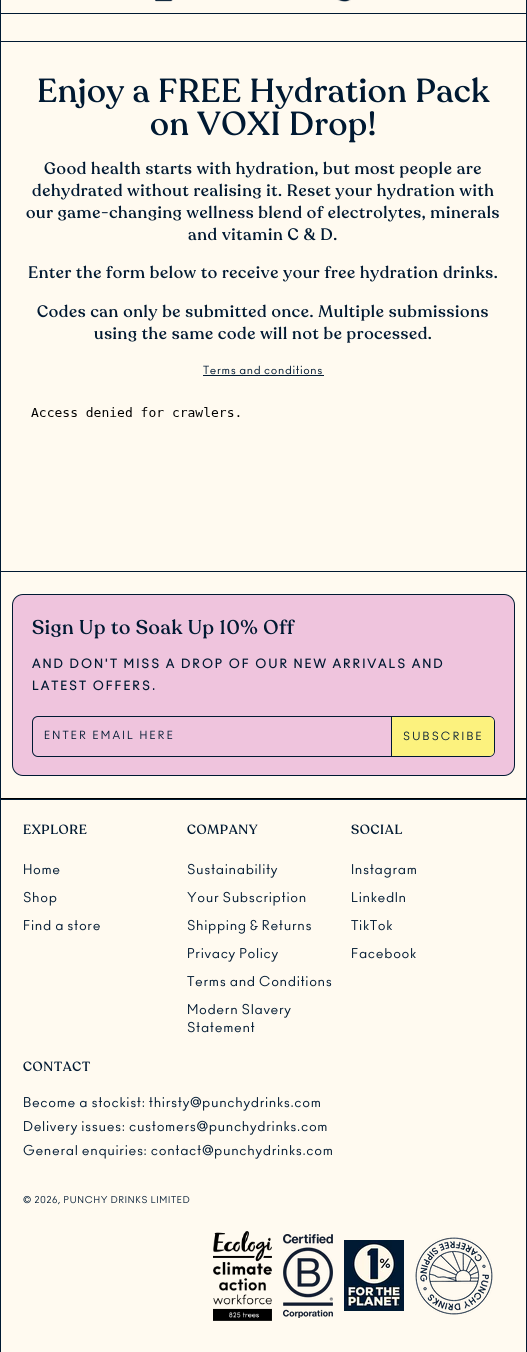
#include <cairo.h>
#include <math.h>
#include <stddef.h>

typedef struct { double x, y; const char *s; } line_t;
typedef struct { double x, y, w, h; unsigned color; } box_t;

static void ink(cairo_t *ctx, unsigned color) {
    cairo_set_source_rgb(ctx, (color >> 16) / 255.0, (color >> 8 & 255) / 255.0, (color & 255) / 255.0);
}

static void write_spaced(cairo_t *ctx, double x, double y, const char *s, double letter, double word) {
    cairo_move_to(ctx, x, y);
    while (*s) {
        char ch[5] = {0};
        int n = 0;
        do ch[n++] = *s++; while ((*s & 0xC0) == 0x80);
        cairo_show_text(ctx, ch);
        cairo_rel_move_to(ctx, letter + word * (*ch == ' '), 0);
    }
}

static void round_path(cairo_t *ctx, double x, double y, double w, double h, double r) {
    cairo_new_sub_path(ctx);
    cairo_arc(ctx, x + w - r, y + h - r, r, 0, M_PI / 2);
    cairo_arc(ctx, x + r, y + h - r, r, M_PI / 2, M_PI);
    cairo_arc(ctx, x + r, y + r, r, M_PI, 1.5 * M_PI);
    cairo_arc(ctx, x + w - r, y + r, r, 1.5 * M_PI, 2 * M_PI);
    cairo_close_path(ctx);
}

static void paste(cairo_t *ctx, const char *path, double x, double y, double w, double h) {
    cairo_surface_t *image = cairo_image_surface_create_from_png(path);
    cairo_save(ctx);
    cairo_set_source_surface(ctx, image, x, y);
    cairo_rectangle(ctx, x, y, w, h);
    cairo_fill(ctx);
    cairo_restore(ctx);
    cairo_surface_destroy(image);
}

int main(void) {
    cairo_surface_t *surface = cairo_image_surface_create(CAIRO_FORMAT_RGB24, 527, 1352);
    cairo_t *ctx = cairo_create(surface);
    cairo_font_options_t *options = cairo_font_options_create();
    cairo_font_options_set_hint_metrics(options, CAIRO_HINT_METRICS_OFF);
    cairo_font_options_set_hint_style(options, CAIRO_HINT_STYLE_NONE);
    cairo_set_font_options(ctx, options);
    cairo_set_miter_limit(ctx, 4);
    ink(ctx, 0xFFFAF0);
    cairo_paint(ctx);
    paste(ctx, "media/1.png", 155, 0, 196, 2);
    {
        static const box_t items[] = {
            {526, 0, 1, 571, 0x001932},
            {0, 0, 1, 571, 0x001932},
            {1, 13, 525, 1, 0x001932},
            {1, 41, 525, 1, 0x001932},
        };
        for (size_t i = 0; i < sizeof items / sizeof *items; i++) {
            ink(ctx, items[i].color);
            cairo_rectangle(ctx, items[i].x, items[i].y, items[i].w, items[i].h);
            cairo_fill(ctx);
        }
    }
    cairo_select_font_face(ctx, "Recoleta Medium", CAIRO_FONT_SLANT_NORMAL, CAIRO_FONT_WEIGHT_NORMAL);
    cairo_set_font_size(ctx, 33);
    write_spaced(ctx, 37, 102, "Enjoy a FREE Hydration Pack", 0.65, 0);
    write_spaced(ctx, 150, 135, "on VOXI Drop!", 0.65, 0);
    cairo_set_font_size(ctx, 16.5);
    {
        static const line_t items[] = {
            {44, 174, "Good health starts with hydration, but most people are"},
            {32, 196, "dehydrated without realising it. Reset your hydration with"},
            {26, 218, "our game-changing wellness blend of electrolytes, minerals"},
            {188, 240, "and vitamin C & D."},
            {28, 278, "Enter the form below to receive your free hydration drinks."},
            {37, 317, "Codes can only be submitted once. Multiple submissions"},
            {94, 339, "using the same code will not be processed."},
        };
        for (size_t i = 0; i < sizeof items / sizeof *items; i++) {
            write_spaced(ctx, items[i].x, items[i].y, items[i].s, 0.65, 0);
        }
    }
    cairo_select_font_face(ctx, "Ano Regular", CAIRO_FONT_SLANT_NORMAL, CAIRO_FONT_WEIGHT_NORMAL);
    cairo_set_font_size(ctx, 11);
    write_spaced(ctx, 203, 374, "Terms and conditions", 0.65, 0);
    cairo_rectangle(ctx, 203, 375, 121, 1);
    cairo_fill(ctx);
    paste(ctx, "media/2.png", 31, 407, 209, 10);
    {
        static const box_t items[] = {
            {0, 571, 527, 1, 0x001932},
            {526, 572, 1, 227, 0x001932},
            {0, 572, 1, 227, 0x001932},
            {1, 798, 525, 1, 0x000000},
        };
        for (size_t i = 0; i < sizeof items / sizeof *items; i++) {
            ink(ctx, items[i].color);
            cairo_rectangle(ctx, items[i].x, items[i].y, items[i].w, items[i].h);
            cairo_fill(ctx);
        }
    }
    ink(ctx, 0xEFC4DD);
    round_path(ctx, 12.5, 594.5, 502, 181, 10.5);
    cairo_fill_preserve(ctx);
    ink(ctx, 0x001932);
    cairo_set_line_width(ctx, 1);
    cairo_stroke(ctx);
    cairo_select_font_face(ctx, "Recoleta Medium", CAIRO_FONT_SLANT_NORMAL, CAIRO_FONT_WEIGHT_NORMAL);
    cairo_set_font_size(ctx, 19.75);
    write_spaced(ctx, 32, 634, "Sign Up to Soak Up 10% Off", 0.65, 0);
    cairo_select_font_face(ctx, "Ano Regular", CAIRO_FONT_SLANT_NORMAL, CAIRO_FONT_WEIGHT_BOLD);
    cairo_set_font_size(ctx, 12.1);
    write_spaced(ctx, 32, 668, "AND DON'T MISS A DROP OF OUR NEW ARRIVALS AND", 2.2, 0);
    write_spaced(ctx, 32, 690, "LATEST OFFERS.", 2.2, 0);
    round_path(ctx, 32.5, 716.5, 462, 40, 5.5);
    cairo_stroke(ctx);
    cairo_select_font_face(ctx, "Ano Regular", CAIRO_FONT_SLANT_NORMAL, CAIRO_FONT_WEIGHT_NORMAL);
    cairo_set_font_size(ctx, 11);
    write_spaced(ctx, 44, 739, "ENTER EMAIL HERE", 2.2, 0);
    ink(ctx, 0xFCF27E);
    cairo_new_path(ctx);
    cairo_move_to(ctx, 391, 717);
    cairo_line_to(ctx, 489, 717);
    cairo_curve_to(ctx, 492, 717, 494, 719, 494, 722);
    cairo_line_to(ctx, 494, 751);
    cairo_curve_to(ctx, 494, 754, 492, 756, 489, 756);
    cairo_line_to(ctx, 391, 756);
    cairo_close_path(ctx);
    cairo_fill(ctx);
    ink(ctx, 0x001932);
    cairo_rectangle(ctx, 391, 717, 1, 39);
    cairo_fill(ctx);
    write_spaced(ctx, 403, 740, "SUBSCRIBE", 2.2, 0);
    {
        static const box_t items[] = {
            {0, 799, 527, 1, 0x001932},
            {526, 800, 1, 552, 0x001932},
            {0, 800, 1, 552, 0x001932},
        };
        for (size_t i = 0; i < sizeof items / sizeof *items; i++) {
            ink(ctx, items[i].color);
            cairo_rectangle(ctx, items[i].x, items[i].y, items[i].w, items[i].h);
            cairo_fill(ctx);
        }
    }
    cairo_select_font_face(ctx, "Recoleta Medium", CAIRO_FONT_SLANT_NORMAL, CAIRO_FONT_WEIGHT_NORMAL);
    cairo_set_font_size(ctx, 13.2);
    write_spaced(ctx, 23, 834, "EXPLORE", 0.65, 0);
    cairo_select_font_face(ctx, "Ano Regular", CAIRO_FONT_SLANT_NORMAL, CAIRO_FONT_WEIGHT_NORMAL);
    {
        static const line_t items[] = {
            {23, 874, "Home"},
            {23, 902, "Shop"},
            {23, 930, "Find a store"},
        };
        for (size_t i = 0; i < sizeof items / sizeof *items; i++) {
            write_spaced(ctx, items[i].x, items[i].y, items[i].s, 0.65, 0);
        }
    }
    cairo_select_font_face(ctx, "Recoleta Medium", CAIRO_FONT_SLANT_NORMAL, CAIRO_FONT_WEIGHT_NORMAL);
    write_spaced(ctx, 187, 834, "COMPANY", 0.65, 0);
    cairo_select_font_face(ctx, "Ano Regular", CAIRO_FONT_SLANT_NORMAL, CAIRO_FONT_WEIGHT_NORMAL);
    {
        static const line_t items[] = {
            {187, 874, "Sustainability"},
            {187, 902, "Your Subscription"},
            {187, 930, "Shipping & Returns"},
            {187, 958, "Privacy Policy"},
            {187, 986, "Terms and Conditions"},
            {187, 1014, "Modern Slavery"},
            {187, 1032, "Statement"},
        };
        for (size_t i = 0; i < sizeof items / sizeof *items; i++) {
            write_spaced(ctx, items[i].x, items[i].y, items[i].s, 0.65, 0);
        }
    }
    cairo_select_font_face(ctx, "Recoleta Medium", CAIRO_FONT_SLANT_NORMAL, CAIRO_FONT_WEIGHT_NORMAL);
    write_spaced(ctx, 351, 834, "SOCIAL", 0.65, 0);
    cairo_select_font_face(ctx, "Ano Regular", CAIRO_FONT_SLANT_NORMAL, CAIRO_FONT_WEIGHT_NORMAL);
    {
        static const line_t items[] = {
            {351, 874, "Instagram"},
            {351, 902, "LinkedIn"},
            {351, 930, "TikTok"},
            {351, 958, "Facebook"},
        };
        for (size_t i = 0; i < sizeof items / sizeof *items; i++) {
            write_spaced(ctx, items[i].x, items[i].y, items[i].s, 0.65, 0);
        }
    }
    cairo_select_font_face(ctx, "Recoleta Medium", CAIRO_FONT_SLANT_NORMAL, CAIRO_FONT_WEIGHT_NORMAL);
    write_spaced(ctx, 23, 1071, "CONTACT", 0.65, 0);
    cairo_select_font_face(ctx, "Ano Regular", CAIRO_FONT_SLANT_NORMAL, CAIRO_FONT_WEIGHT_NORMAL);
    {
        static const line_t items[] = {
            {23, 1107, "Become a stockist: thirsty@punchydrinks.com"},
            {23, 1131, "Delivery issues: customers@punchydrinks.com"},
            {23, 1155, "General enquiries: contact@punchydrinks.com"},
        };
        for (size_t i = 0; i < sizeof items / sizeof *items; i++) {
            write_spaced(ctx, items[i].x, items[i].y, items[i].s, 0.65, 0);
        }
    }
    cairo_set_font_size(ctx, 9.2);
    write_spaced(ctx, 23, 1203, "© 2026, PUNCHY DRINKS LIMITED", 0.75, 0);
    paste(ctx, "media/3.png", 213, 1231, 59, 90);
    paste(ctx, "media/4.png", 283, 1234, 50, 84);
    paste(ctx, "media/5.png", 344, 1240, 60, 71);
    paste(ctx, "media/6.png", 415, 1237, 78, 78);
    cairo_surface_write_to_png(surface, "image.png");
    cairo_font_options_destroy(options);
    cairo_destroy(ctx);
    cairo_surface_destroy(surface);
    return 0;
}
